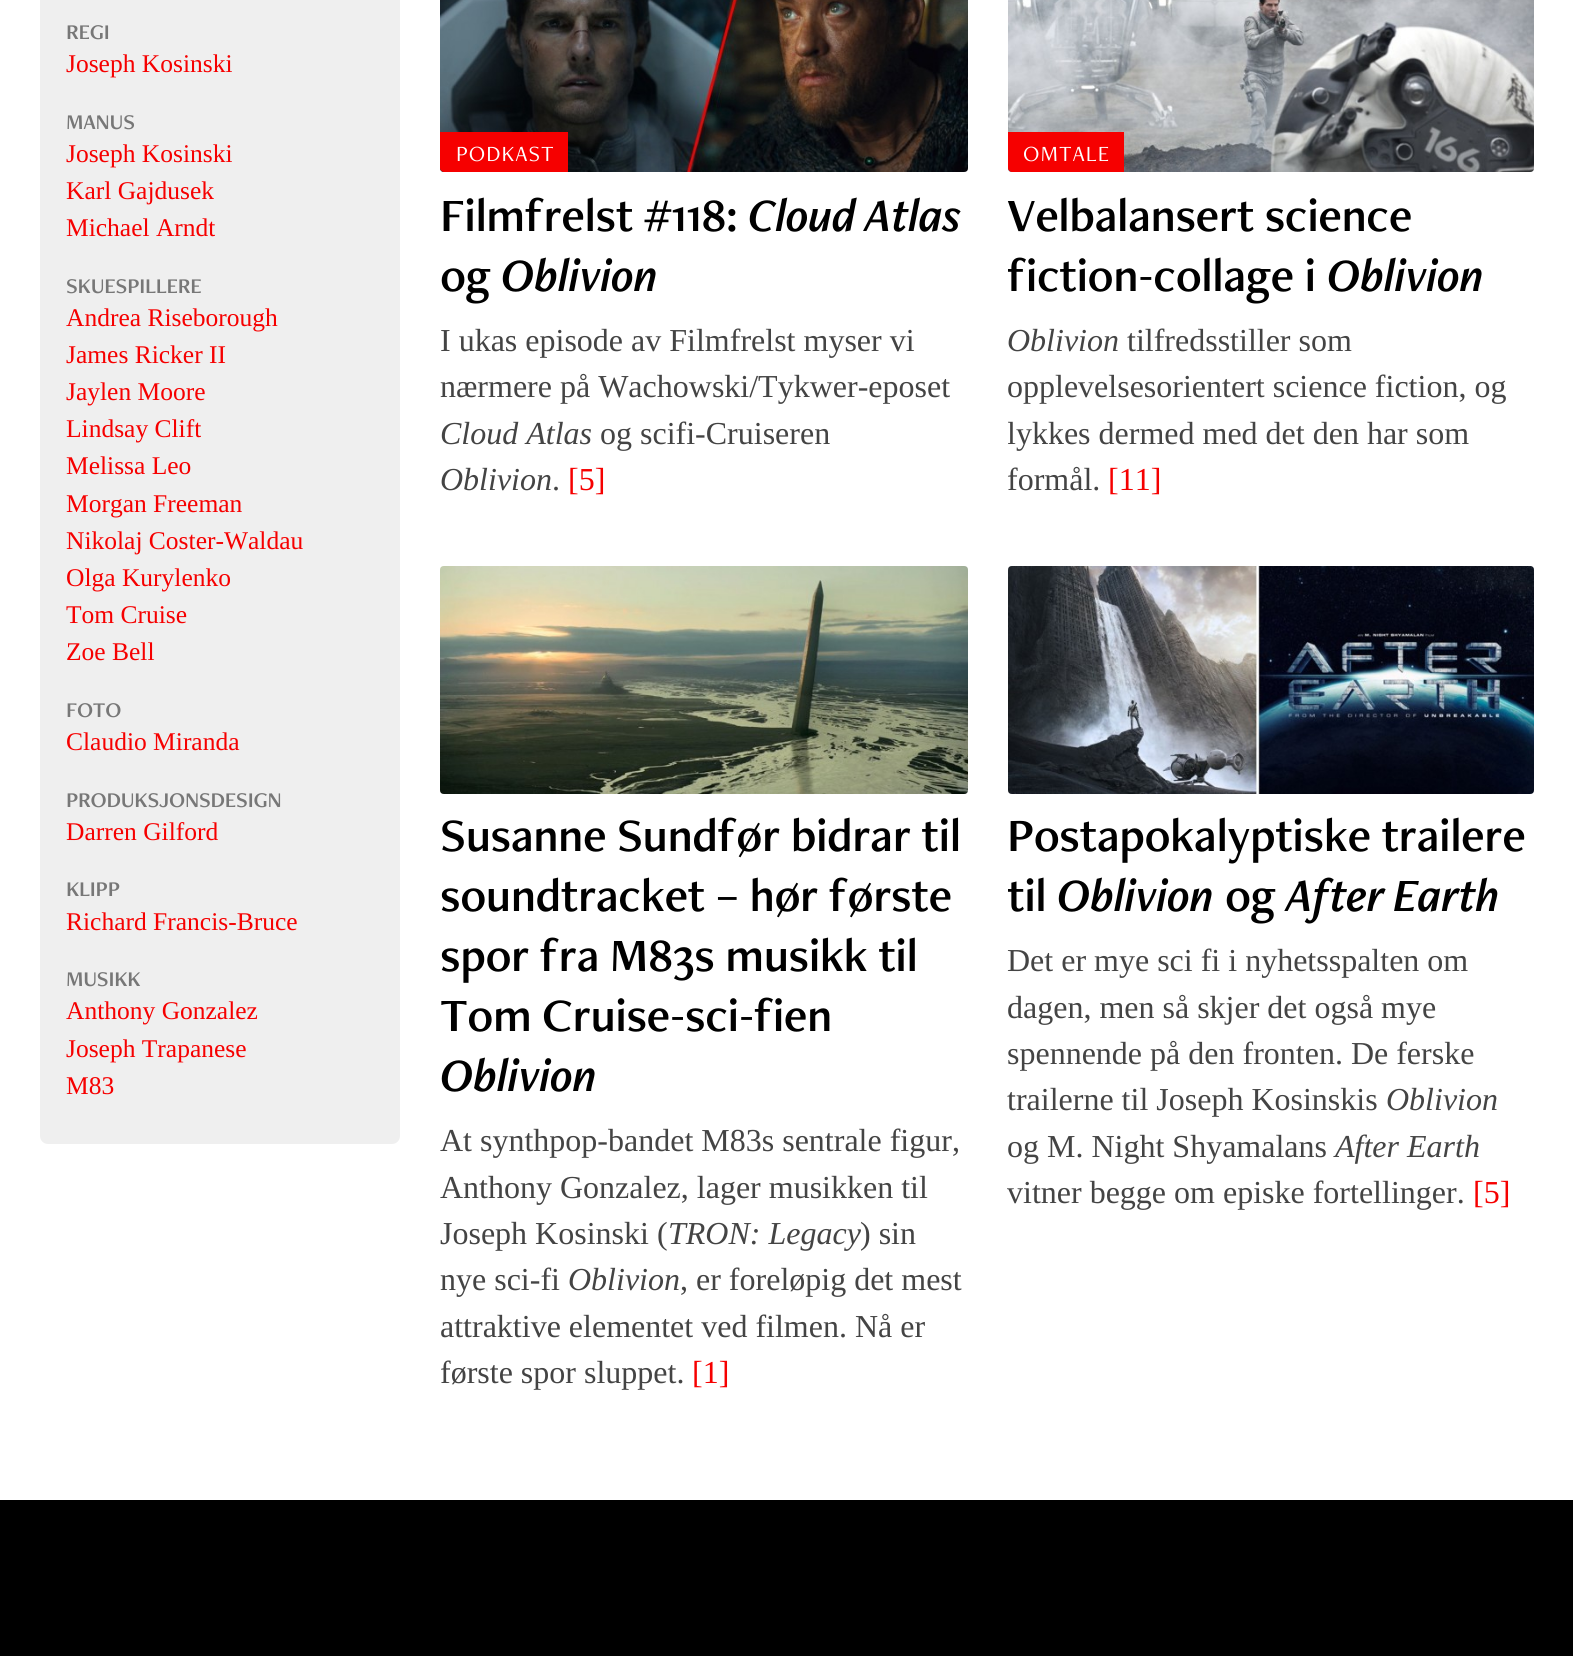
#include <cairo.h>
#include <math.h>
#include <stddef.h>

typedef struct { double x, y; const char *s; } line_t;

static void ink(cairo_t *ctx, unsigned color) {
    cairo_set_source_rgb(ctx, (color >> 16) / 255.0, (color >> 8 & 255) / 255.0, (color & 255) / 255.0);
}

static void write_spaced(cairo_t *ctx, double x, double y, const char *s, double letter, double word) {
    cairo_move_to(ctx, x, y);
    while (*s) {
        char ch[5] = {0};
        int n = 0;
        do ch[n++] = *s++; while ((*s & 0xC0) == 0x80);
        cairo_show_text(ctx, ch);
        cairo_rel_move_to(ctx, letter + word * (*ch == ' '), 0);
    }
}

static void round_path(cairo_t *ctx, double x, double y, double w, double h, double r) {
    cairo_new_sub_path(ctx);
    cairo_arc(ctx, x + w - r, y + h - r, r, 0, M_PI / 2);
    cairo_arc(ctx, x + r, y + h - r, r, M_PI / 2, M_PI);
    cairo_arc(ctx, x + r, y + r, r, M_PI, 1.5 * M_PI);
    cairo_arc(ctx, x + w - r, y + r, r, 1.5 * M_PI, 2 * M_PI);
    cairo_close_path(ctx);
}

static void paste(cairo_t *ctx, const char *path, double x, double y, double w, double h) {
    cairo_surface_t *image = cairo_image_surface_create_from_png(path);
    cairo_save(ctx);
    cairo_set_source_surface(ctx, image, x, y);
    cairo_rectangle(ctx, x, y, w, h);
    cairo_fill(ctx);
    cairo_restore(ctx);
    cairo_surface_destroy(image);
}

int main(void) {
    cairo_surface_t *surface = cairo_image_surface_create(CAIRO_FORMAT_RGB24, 1573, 1656);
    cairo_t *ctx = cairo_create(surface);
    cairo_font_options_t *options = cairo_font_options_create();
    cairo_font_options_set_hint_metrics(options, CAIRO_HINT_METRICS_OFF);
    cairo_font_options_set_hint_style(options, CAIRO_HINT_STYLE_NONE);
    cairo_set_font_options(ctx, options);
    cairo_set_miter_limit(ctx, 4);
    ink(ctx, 0xFFFFFF);
    cairo_paint(ctx);
    ink(ctx, 0xEFEFEF);
    round_path(ctx, 40, -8, 360, 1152, 8);
    cairo_fill(ctx);
    cairo_select_font_face(ctx, "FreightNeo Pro", CAIRO_FONT_SLANT_NORMAL, CAIRO_FONT_WEIGHT_NORMAL);
    cairo_set_font_size(ctx, 21.75);
    ink(ctx, 0x777777);
    write_spaced(ctx, 66, 39, "REGI", -0.25, 0);
    cairo_select_font_face(ctx, "Liberation Serif", CAIRO_FONT_SLANT_NORMAL, CAIRO_FONT_WEIGHT_NORMAL);
    cairo_set_font_size(ctx, 25.5);
    ink(ctx, 0xF60000);
    cairo_move_to(ctx, 66, 72);
    cairo_show_text(ctx, "Joseph Kosinski");
    cairo_select_font_face(ctx, "FreightNeo Pro", CAIRO_FONT_SLANT_NORMAL, CAIRO_FONT_WEIGHT_NORMAL);
    cairo_set_font_size(ctx, 21.75);
    ink(ctx, 0x777777);
    write_spaced(ctx, 66, 129, "MANUS", -0.25, 0);
    cairo_select_font_face(ctx, "Liberation Serif", CAIRO_FONT_SLANT_NORMAL, CAIRO_FONT_WEIGHT_NORMAL);
    cairo_set_font_size(ctx, 25.5);
    ink(ctx, 0xF60000);
    {
        static const line_t items[] = {
            {66, 162, "Joseph Kosinski"},
            {66, 199, "Karl Gajdusek"},
            {66, 236, "Michael Arndt"},
        };
        for (size_t i = 0; i < sizeof items / sizeof *items; i++) {
            cairo_move_to(ctx, items[i].x, items[i].y);
            cairo_show_text(ctx, items[i].s);
        }
    }
    cairo_select_font_face(ctx, "FreightNeo Pro", CAIRO_FONT_SLANT_NORMAL, CAIRO_FONT_WEIGHT_NORMAL);
    cairo_set_font_size(ctx, 21.75);
    ink(ctx, 0x777777);
    write_spaced(ctx, 66, 293, "SKUESPILLERE", -0.25, 0);
    cairo_select_font_face(ctx, "Liberation Serif", CAIRO_FONT_SLANT_NORMAL, CAIRO_FONT_WEIGHT_NORMAL);
    cairo_set_font_size(ctx, 25.5);
    ink(ctx, 0xF60000);
    {
        static const line_t items[] = {
            {66, 326, "Andrea Riseborough"},
            {66, 363, "James Ricker II"},
            {66, 400, "Jaylen Moore"},
            {66, 437, "Lindsay Clift"},
            {66, 474, "Melissa Leo"},
            {66, 512, "Morgan Freeman"},
            {66, 549, "Nikolaj Coster-Waldau"},
            {66, 586, "Olga Kurylenko"},
            {66, 623, "Tom Cruise"},
            {66, 660, "Zoe Bell"},
        };
        for (size_t i = 0; i < sizeof items / sizeof *items; i++) {
            cairo_move_to(ctx, items[i].x, items[i].y);
            cairo_show_text(ctx, items[i].s);
        }
    }
    cairo_select_font_face(ctx, "FreightNeo Pro", CAIRO_FONT_SLANT_NORMAL, CAIRO_FONT_WEIGHT_NORMAL);
    cairo_set_font_size(ctx, 21.75);
    ink(ctx, 0x777777);
    write_spaced(ctx, 66, 717, "FOTO", -0.25, 0);
    cairo_select_font_face(ctx, "Liberation Serif", CAIRO_FONT_SLANT_NORMAL, CAIRO_FONT_WEIGHT_NORMAL);
    cairo_set_font_size(ctx, 25.5);
    ink(ctx, 0xF60000);
    cairo_move_to(ctx, 66, 750);
    cairo_show_text(ctx, "Claudio Miranda");
    cairo_select_font_face(ctx, "FreightNeo Pro", CAIRO_FONT_SLANT_NORMAL, CAIRO_FONT_WEIGHT_NORMAL);
    cairo_set_font_size(ctx, 21.75);
    ink(ctx, 0x777777);
    write_spaced(ctx, 66, 807, "PRODUKSJONSDESIGN", -0.25, 0);
    cairo_select_font_face(ctx, "Liberation Serif", CAIRO_FONT_SLANT_NORMAL, CAIRO_FONT_WEIGHT_NORMAL);
    cairo_set_font_size(ctx, 25.5);
    ink(ctx, 0xF60000);
    cairo_move_to(ctx, 66, 840);
    cairo_show_text(ctx, "Darren Gilford");
    cairo_select_font_face(ctx, "FreightNeo Pro", CAIRO_FONT_SLANT_NORMAL, CAIRO_FONT_WEIGHT_NORMAL);
    cairo_set_font_size(ctx, 21.75);
    ink(ctx, 0x777777);
    write_spaced(ctx, 66, 896, "KLIPP", -0.25, 0);
    cairo_select_font_face(ctx, "Liberation Serif", CAIRO_FONT_SLANT_NORMAL, CAIRO_FONT_WEIGHT_NORMAL);
    cairo_set_font_size(ctx, 25.5);
    ink(ctx, 0xF60000);
    cairo_move_to(ctx, 66, 930);
    cairo_show_text(ctx, "Richard Francis-Bruce");
    cairo_select_font_face(ctx, "FreightNeo Pro", CAIRO_FONT_SLANT_NORMAL, CAIRO_FONT_WEIGHT_NORMAL);
    cairo_set_font_size(ctx, 21.75);
    ink(ctx, 0x777777);
    write_spaced(ctx, 66, 986, "MUSIKK", -0.25, 0);
    cairo_select_font_face(ctx, "Liberation Serif", CAIRO_FONT_SLANT_NORMAL, CAIRO_FONT_WEIGHT_NORMAL);
    cairo_set_font_size(ctx, 25.5);
    ink(ctx, 0xF60000);
    {
        static const line_t items[] = {
            {66, 1019, "Anthony Gonzalez"},
            {66, 1057, "Joseph Trapanese"},
            {66, 1094, "M83"},
        };
        for (size_t i = 0; i < sizeof items / sizeof *items; i++) {
            cairo_move_to(ctx, items[i].x, items[i].y);
            cairo_show_text(ctx, items[i].s);
        }
    }
    paste(ctx, "media/1.png", 440, 0, 528, 172);
    cairo_new_path(ctx);
    cairo_move_to(ctx, 440, 132);
    cairo_line_to(ctx, 568, 132);
    cairo_line_to(ctx, 568, 172);
    cairo_line_to(ctx, 444, 172);
    cairo_curve_to(ctx, 442, 172, 440, 170, 440, 168);
    cairo_close_path(ctx);
    cairo_fill(ctx);
    cairo_select_font_face(ctx, "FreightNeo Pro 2", CAIRO_FONT_SLANT_NORMAL, CAIRO_FONT_WEIGHT_NORMAL);
    cairo_set_font_size(ctx, 22.5);
    ink(ctx, 0xFFFFFF);
    write_spaced(ctx, 456, 161, "PODKAST", 1, 0);
    cairo_select_font_face(ctx, "FreightNeo Pro", CAIRO_FONT_SLANT_NORMAL, CAIRO_FONT_WEIGHT_NORMAL);
    cairo_set_font_size(ctx, 48);
    ink(ctx, 0x000000);
    write_spaced(ctx, 440, 231, "Filmfrelst #118:", -0.5, 0);
    cairo_select_font_face(ctx, "FreightNeo Pro SemiBold", CAIRO_FONT_SLANT_ITALIC, CAIRO_FONT_WEIGHT_NORMAL);
    write_spaced(ctx, 748, 231, "Cloud Atlas", -0.5, 0);
    cairo_select_font_face(ctx, "FreightNeo Pro", CAIRO_FONT_SLANT_NORMAL, CAIRO_FONT_WEIGHT_NORMAL);
    write_spaced(ctx, 440, 291, "og", -0.5, 0);
    cairo_select_font_face(ctx, "FreightNeo Pro SemiBold", CAIRO_FONT_SLANT_ITALIC, CAIRO_FONT_WEIGHT_NORMAL);
    write_spaced(ctx, 501, 291, "Oblivion", -0.5, 0);
    cairo_select_font_face(ctx, "Liberation Serif", CAIRO_FONT_SLANT_NORMAL, CAIRO_FONT_WEIGHT_NORMAL);
    cairo_set_font_size(ctx, 32);
    ink(ctx, 0x444444);
    cairo_move_to(ctx, 440, 351);
    cairo_show_text(ctx, "I ukas episode av Filmfrelst myser vi");
    cairo_move_to(ctx, 440, 397);
    cairo_show_text(ctx, "nærmere på Wachowski/Tykwer-eposet");
    cairo_select_font_face(ctx, "Liberation Serif", CAIRO_FONT_SLANT_ITALIC, CAIRO_FONT_WEIGHT_NORMAL);
    cairo_move_to(ctx, 440, 444);
    cairo_show_text(ctx, "Cloud Atlas");
    cairo_select_font_face(ctx, "Liberation Serif", CAIRO_FONT_SLANT_NORMAL, CAIRO_FONT_WEIGHT_NORMAL);
    cairo_move_to(ctx, 600, 444);
    cairo_show_text(ctx, "og scifi-Cruiseren");
    cairo_select_font_face(ctx, "Liberation Serif", CAIRO_FONT_SLANT_ITALIC, CAIRO_FONT_WEIGHT_NORMAL);
    cairo_move_to(ctx, 440, 490);
    cairo_show_text(ctx, "Oblivion");
    cairo_select_font_face(ctx, "Liberation Serif", CAIRO_FONT_SLANT_NORMAL, CAIRO_FONT_WEIGHT_NORMAL);
    cairo_move_to(ctx, 552, 490);
    cairo_show_text(ctx, ".");
    ink(ctx, 0xF60000);
    cairo_move_to(ctx, 568, 490);
    cairo_show_text(ctx, "[5]");
    paste(ctx, "media/2.png", 1008, 0, 526, 172);
    cairo_new_path(ctx);
    cairo_move_to(ctx, 1008, 132);
    cairo_line_to(ctx, 1124, 132);
    cairo_line_to(ctx, 1124, 172);
    cairo_line_to(ctx, 1012, 172);
    cairo_curve_to(ctx, 1010, 172, 1008, 170, 1008, 168);
    cairo_close_path(ctx);
    cairo_fill(ctx);
    cairo_select_font_face(ctx, "FreightNeo Pro 2", CAIRO_FONT_SLANT_NORMAL, CAIRO_FONT_WEIGHT_NORMAL);
    cairo_set_font_size(ctx, 22.5);
    ink(ctx, 0xFFFFFF);
    write_spaced(ctx, 1023, 161, "OMTALE", 1, 0);
    cairo_select_font_face(ctx, "FreightNeo Pro", CAIRO_FONT_SLANT_NORMAL, CAIRO_FONT_WEIGHT_NORMAL);
    cairo_set_font_size(ctx, 48);
    ink(ctx, 0x000000);
    write_spaced(ctx, 1007, 231, "Velbalansert science", -0.5, 0);
    cairo_save(ctx);
    cairo_rectangle(ctx, 1008, 0, 526, 502);
    cairo_clip(ctx);
    write_spaced(ctx, 1007, 291, "fiction-collage i", -0.5, 0);
    cairo_restore(ctx);
    cairo_select_font_face(ctx, "FreightNeo Pro SemiBold", CAIRO_FONT_SLANT_ITALIC, CAIRO_FONT_WEIGHT_NORMAL);
    write_spaced(ctx, 1327, 291, "Oblivion", -0.5, 0);
    cairo_select_font_face(ctx, "Liberation Serif", CAIRO_FONT_SLANT_ITALIC, CAIRO_FONT_WEIGHT_NORMAL);
    cairo_set_font_size(ctx, 32);
    ink(ctx, 0x444444);
    cairo_move_to(ctx, 1007, 351);
    cairo_show_text(ctx, "Oblivion");
    cairo_select_font_face(ctx, "Liberation Serif", CAIRO_FONT_SLANT_NORMAL, CAIRO_FONT_WEIGHT_NORMAL);
    cairo_move_to(ctx, 1127, 351);
    cairo_show_text(ctx, "tilfredsstiller som");
    cairo_move_to(ctx, 1007, 397);
    cairo_show_text(ctx, "opplevelsesorientert science fiction, og");
    cairo_save(ctx);
    cairo_rectangle(ctx, 1008, 0, 526, 502);
    cairo_clip(ctx);
    cairo_move_to(ctx, 1007, 444);
    cairo_show_text(ctx, "lykkes dermed med det den har som");
    cairo_restore(ctx);
    cairo_move_to(ctx, 1007, 490);
    cairo_show_text(ctx, "formål.");
    ink(ctx, 0xF60000);
    cairo_move_to(ctx, 1108, 490);
    cairo_show_text(ctx, "[11]");
    paste(ctx, "media/3.png", 440, 566, 528, 228);
    cairo_select_font_face(ctx, "FreightNeo Pro", CAIRO_FONT_SLANT_NORMAL, CAIRO_FONT_WEIGHT_NORMAL);
    cairo_set_font_size(ctx, 48);
    ink(ctx, 0x000000);
    {
        static const line_t items[] = {
            {440, 851, "Susanne Sundfør bidrar til"},
            {440, 911, "soundtracket – hør første"},
            {440, 971, "spor fra M83s musikk til"},
            {440, 1031, "Tom Cruise-sci-fien"},
        };
        for (size_t i = 0; i < sizeof items / sizeof *items; i++) {
            write_spaced(ctx, items[i].x, items[i].y, items[i].s, -0.5, 0);
        }
    }
    cairo_select_font_face(ctx, "FreightNeo Pro SemiBold", CAIRO_FONT_SLANT_ITALIC, CAIRO_FONT_WEIGHT_NORMAL);
    write_spaced(ctx, 440, 1091, "Oblivion", -0.5, 0);
    cairo_select_font_face(ctx, "Liberation Serif", CAIRO_FONT_SLANT_NORMAL, CAIRO_FONT_WEIGHT_NORMAL);
    cairo_set_font_size(ctx, 32);
    ink(ctx, 0x444444);
    {
        static const line_t items[] = {
            {440, 1151, "At synthpop-bandet M83s sentrale figur,"},
            {440, 1198, "Anthony Gonzalez, lager musikken til"},
            {440, 1244, "Joseph Kosinski ("},
        };
        for (size_t i = 0; i < sizeof items / sizeof *items; i++) {
            cairo_move_to(ctx, items[i].x, items[i].y);
            cairo_show_text(ctx, items[i].s);
        }
    }
    cairo_select_font_face(ctx, "Liberation Serif", CAIRO_FONT_SLANT_ITALIC, CAIRO_FONT_WEIGHT_NORMAL);
    cairo_move_to(ctx, 668, 1244);
    cairo_show_text(ctx, "TRON: Legacy");
    cairo_select_font_face(ctx, "Liberation Serif", CAIRO_FONT_SLANT_NORMAL, CAIRO_FONT_WEIGHT_NORMAL);
    cairo_move_to(ctx, 860, 1244);
    cairo_show_text(ctx, ") sin");
    cairo_move_to(ctx, 440, 1290);
    cairo_show_text(ctx, "nye sci-fi");
    cairo_select_font_face(ctx, "Liberation Serif", CAIRO_FONT_SLANT_ITALIC, CAIRO_FONT_WEIGHT_NORMAL);
    cairo_move_to(ctx, 568, 1290);
    cairo_show_text(ctx, "Oblivion");
    cairo_select_font_face(ctx, "Liberation Serif", CAIRO_FONT_SLANT_NORMAL, CAIRO_FONT_WEIGHT_NORMAL);
    {
        static const line_t items[] = {
            {680, 1290, ", er foreløpig det mest"},
            {440, 1337, "attraktive elementet ved filmen. Nå er"},
            {440, 1383, "første spor sluppet."},
        };
        for (size_t i = 0; i < sizeof items / sizeof *items; i++) {
            cairo_move_to(ctx, items[i].x, items[i].y);
            cairo_show_text(ctx, items[i].s);
        }
    }
    ink(ctx, 0xF60000);
    cairo_move_to(ctx, 692, 1383);
    cairo_show_text(ctx, "[1]");
    paste(ctx, "media/4.png", 1008, 566, 526, 228);
    cairo_select_font_face(ctx, "FreightNeo Pro", CAIRO_FONT_SLANT_NORMAL, CAIRO_FONT_WEIGHT_NORMAL);
    cairo_set_font_size(ctx, 48);
    ink(ctx, 0x000000);
    write_spaced(ctx, 1007, 851, "Postapokalyptiske trailere", -0.5, 0);
    cairo_save(ctx);
    cairo_rectangle(ctx, 1008, 566, 526, 650);
    cairo_clip(ctx);
    write_spaced(ctx, 1007, 911, "til", -0.5, 0);
    cairo_restore(ctx);
    cairo_select_font_face(ctx, "FreightNeo Pro SemiBold", CAIRO_FONT_SLANT_ITALIC, CAIRO_FONT_WEIGHT_NORMAL);
    write_spaced(ctx, 1057, 911, "Oblivion", -0.5, 0);
    cairo_select_font_face(ctx, "FreightNeo Pro", CAIRO_FONT_SLANT_NORMAL, CAIRO_FONT_WEIGHT_NORMAL);
    write_spaced(ctx, 1225, 911, "og", -0.5, 0);
    cairo_select_font_face(ctx, "FreightNeo Pro SemiBold", CAIRO_FONT_SLANT_ITALIC, CAIRO_FONT_WEIGHT_NORMAL);
    write_spaced(ctx, 1286, 911, "After Earth", -0.5, 0);
    cairo_select_font_face(ctx, "Liberation Serif", CAIRO_FONT_SLANT_NORMAL, CAIRO_FONT_WEIGHT_NORMAL);
    cairo_set_font_size(ctx, 32);
    ink(ctx, 0x444444);
    {
        static const line_t items[] = {
            {1007, 971, "Det er mye sci fi i nyhetsspalten om"},
            {1007, 1018, "dagen, men så skjer det også mye"},
            {1007, 1064, "spennende på den fronten. De ferske"},
            {1007, 1110, "trailerne til Joseph Kosinskis"},
        };
        for (size_t i = 0; i < sizeof items / sizeof *items; i++) {
            cairo_move_to(ctx, items[i].x, items[i].y);
            cairo_show_text(ctx, items[i].s);
        }
    }
    cairo_select_font_face(ctx, "Liberation Serif", CAIRO_FONT_SLANT_ITALIC, CAIRO_FONT_WEIGHT_NORMAL);
    cairo_move_to(ctx, 1386, 1110);
    cairo_show_text(ctx, "Oblivion");
    cairo_select_font_face(ctx, "Liberation Serif", CAIRO_FONT_SLANT_NORMAL, CAIRO_FONT_WEIGHT_NORMAL);
    cairo_move_to(ctx, 1007, 1157);
    cairo_show_text(ctx, "og M. Night Shyamalans");
    cairo_select_font_face(ctx, "Liberation Serif", CAIRO_FONT_SLANT_ITALIC, CAIRO_FONT_WEIGHT_NORMAL);
    cairo_move_to(ctx, 1335, 1157);
    cairo_show_text(ctx, "After Earth");
    cairo_select_font_face(ctx, "Liberation Serif", CAIRO_FONT_SLANT_NORMAL, CAIRO_FONT_WEIGHT_NORMAL);
    cairo_move_to(ctx, 1007, 1203);
    cairo_show_text(ctx, "vitner begge om episke fortellinger.");
    ink(ctx, 0xF60000);
    cairo_move_to(ctx, 1473, 1203);
    cairo_show_text(ctx, "[5]");
    ink(ctx, 0x000000);
    cairo_rectangle(ctx, 0, 1500, 1573, 156);
    cairo_fill(ctx);
    cairo_surface_write_to_png(surface, "image.png");
    cairo_font_options_destroy(options);
    cairo_destroy(ctx);
    cairo_surface_destroy(surface);
    return 0;
}
